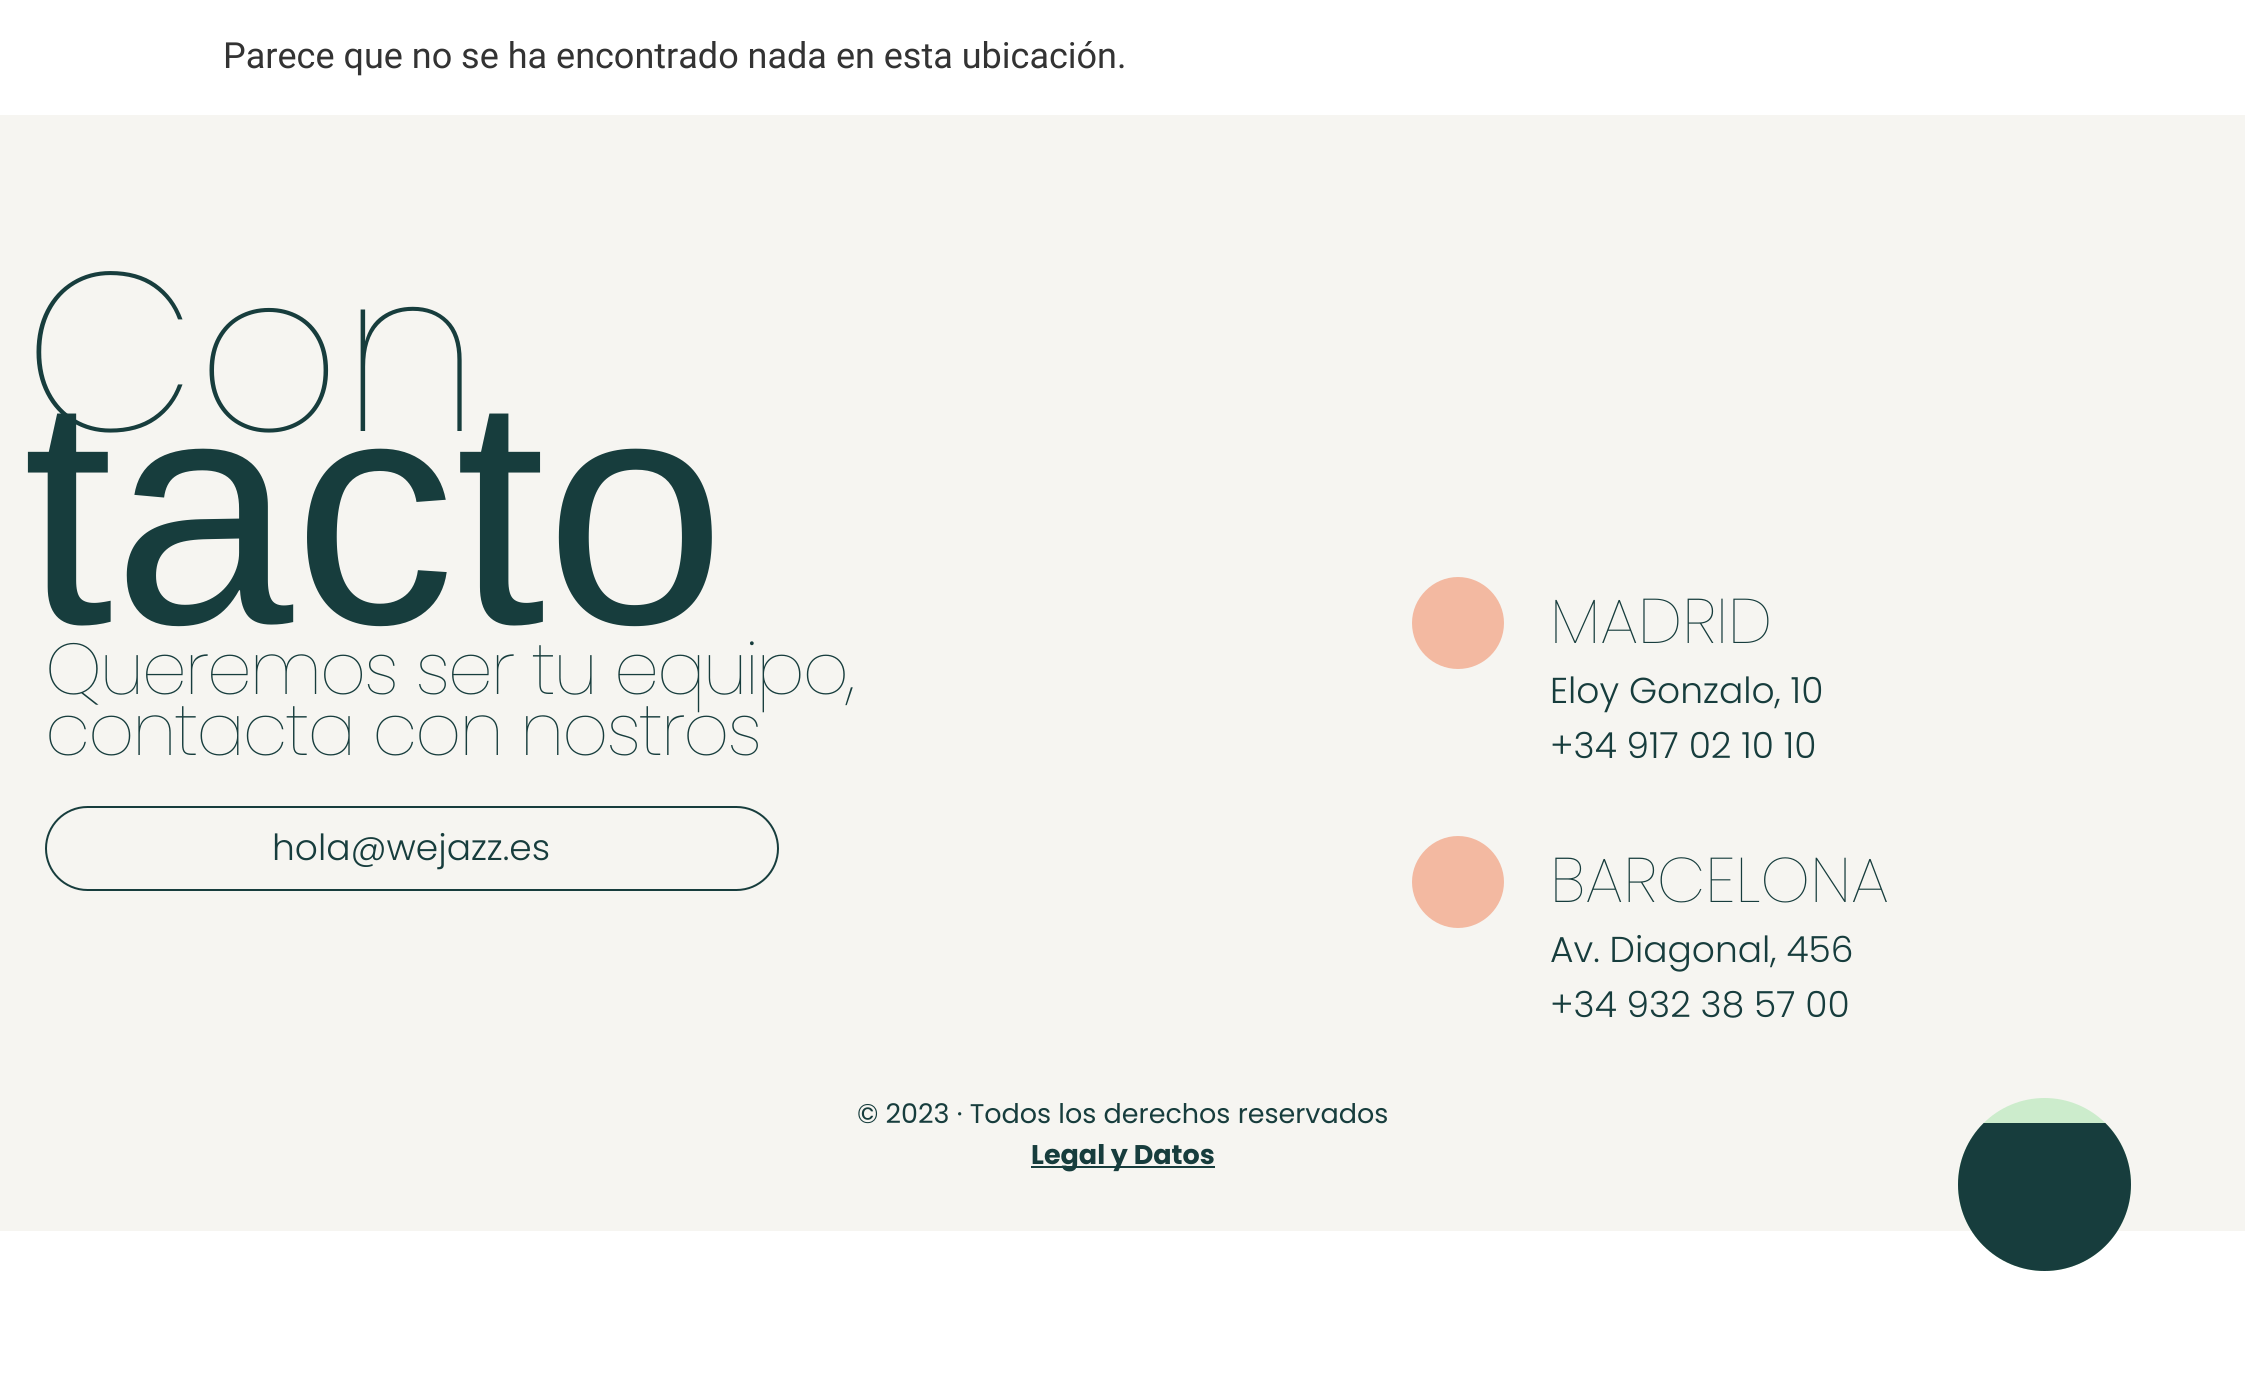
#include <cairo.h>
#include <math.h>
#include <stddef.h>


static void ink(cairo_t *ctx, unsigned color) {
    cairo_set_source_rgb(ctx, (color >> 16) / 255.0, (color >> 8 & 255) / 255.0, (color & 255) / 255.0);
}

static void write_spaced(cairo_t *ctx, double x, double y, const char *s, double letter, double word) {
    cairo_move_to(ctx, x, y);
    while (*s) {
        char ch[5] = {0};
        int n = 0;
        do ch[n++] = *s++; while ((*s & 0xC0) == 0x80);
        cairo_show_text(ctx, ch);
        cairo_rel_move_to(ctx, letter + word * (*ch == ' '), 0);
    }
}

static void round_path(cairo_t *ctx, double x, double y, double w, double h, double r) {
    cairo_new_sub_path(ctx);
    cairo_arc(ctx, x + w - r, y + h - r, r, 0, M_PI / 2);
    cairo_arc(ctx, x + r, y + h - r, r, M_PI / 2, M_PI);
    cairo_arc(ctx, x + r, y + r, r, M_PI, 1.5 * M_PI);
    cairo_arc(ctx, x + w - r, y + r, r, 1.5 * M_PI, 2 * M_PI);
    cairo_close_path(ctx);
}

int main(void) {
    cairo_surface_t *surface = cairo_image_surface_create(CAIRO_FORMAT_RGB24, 2245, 1385);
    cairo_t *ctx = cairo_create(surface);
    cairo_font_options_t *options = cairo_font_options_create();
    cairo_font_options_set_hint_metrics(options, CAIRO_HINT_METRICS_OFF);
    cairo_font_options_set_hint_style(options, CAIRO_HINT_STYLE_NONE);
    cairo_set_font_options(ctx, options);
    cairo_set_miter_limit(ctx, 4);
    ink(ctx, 0xFFFFFF);
    cairo_paint(ctx);
    cairo_select_font_face(ctx, "Roboto", CAIRO_FONT_SLANT_NORMAL, CAIRO_FONT_WEIGHT_NORMAL);
    cairo_set_font_size(ctx, 36);
    ink(ctx, 0x333333);
    cairo_move_to(ctx, 223, 68);
    cairo_show_text(ctx, "Parece que no se ha encontrado nada en esta ubicación.");
    ink(ctx, 0xF6F5F1);
    cairo_rectangle(ctx, 0, 115, 2245, 1116);
    cairo_fill(ctx);
    cairo_select_font_face(ctx, "Poppins ExtraLight", CAIRO_FONT_SLANT_NORMAL, CAIRO_FONT_WEIGHT_NORMAL);
    cairo_set_font_size(ctx, 225);
    ink(ctx, 0x173D3D);
    cairo_move_to(ctx, 23, 431);
    cairo_show_text(ctx, "Con");
    cairo_select_font_face(ctx, "Liberation Sans", CAIRO_FONT_SLANT_NORMAL, CAIRO_FONT_WEIGHT_NORMAL);
    cairo_set_font_size(ctx, 324);
    cairo_move_to(ctx, 23, 623);
    cairo_show_text(ctx, "tacto");
    cairo_select_font_face(ctx, "Poppins ExtraLight", CAIRO_FONT_SLANT_NORMAL, CAIRO_FONT_WEIGHT_NORMAL);
    cairo_set_font_size(ctx, 72);
    write_spaced(ctx, 45, 694, "Queremos ser tu equipo,", -2.25, 0);
    write_spaced(ctx, 45, 755, "contacta con nostros", -2.25, 0);
    round_path(ctx, 46, 807, 732, 83, 41.5);
    cairo_stroke(ctx);
    cairo_select_font_face(ctx, "Poppins Light", CAIRO_FONT_SLANT_NORMAL, CAIRO_FONT_WEIGHT_NORMAL);
    cairo_set_font_size(ctx, 36);
    cairo_move_to(ctx, 272, 860);
    cairo_show_text(ctx, "hola@wejazz.es");
    ink(ctx, 0xF3B9A1);
    cairo_new_path(ctx);
    cairo_move_to(ctx, 1458, 577);
    cairo_curve_to(ctx, 1433, 577, 1412, 598, 1412, 623);
    cairo_curve_to(ctx, 1412, 649, 1433, 669, 1458, 669);
    cairo_curve_to(ctx, 1483, 669, 1504, 649, 1504, 623);
    cairo_curve_to(ctx, 1504, 598, 1483, 577, 1458, 577);
    cairo_close_path(ctx);
    cairo_fill(ctx);
    cairo_select_font_face(ctx, "Poppins ExtraLight", CAIRO_FONT_SLANT_NORMAL, CAIRO_FONT_WEIGHT_NORMAL);
    cairo_set_font_size(ctx, 63);
    ink(ctx, 0x173D3D);
    cairo_move_to(ctx, 1550, 643);
    cairo_show_text(ctx, "MADRID");
    cairo_select_font_face(ctx, "Poppins Light", CAIRO_FONT_SLANT_NORMAL, CAIRO_FONT_WEIGHT_NORMAL);
    cairo_set_font_size(ctx, 36);
    cairo_move_to(ctx, 1550, 703);
    cairo_show_text(ctx, "Eloy Gonzalo, 10");
    cairo_move_to(ctx, 1550, 758);
    cairo_show_text(ctx, "+34 917 02 10 10");
    ink(ctx, 0xF3B9A1);
    cairo_new_path(ctx);
    cairo_move_to(ctx, 1458, 836);
    cairo_curve_to(ctx, 1433, 836, 1412, 857, 1412, 882);
    cairo_curve_to(ctx, 1412, 907, 1433, 928, 1458, 928);
    cairo_curve_to(ctx, 1483, 928, 1504, 907, 1504, 882);
    cairo_curve_to(ctx, 1504, 857, 1483, 836, 1458, 836);
    cairo_close_path(ctx);
    cairo_fill(ctx);
    cairo_select_font_face(ctx, "Poppins ExtraLight", CAIRO_FONT_SLANT_NORMAL, CAIRO_FONT_WEIGHT_NORMAL);
    cairo_set_font_size(ctx, 63);
    ink(ctx, 0x173D3D);
    cairo_move_to(ctx, 1550, 902);
    cairo_show_text(ctx, "BARCELONA");
    cairo_select_font_face(ctx, "Poppins Light", CAIRO_FONT_SLANT_NORMAL, CAIRO_FONT_WEIGHT_NORMAL);
    cairo_set_font_size(ctx, 36);
    cairo_move_to(ctx, 1550, 962);
    cairo_show_text(ctx, "Av. Diagonal, 456");
    cairo_move_to(ctx, 1550, 1017);
    cairo_show_text(ctx, "+34 932 38 57 00");
    cairo_select_font_face(ctx, "Poppins", CAIRO_FONT_SLANT_NORMAL, CAIRO_FONT_WEIGHT_NORMAL);
    cairo_set_font_size(ctx, 27);
    cairo_move_to(ctx, 857, 1123);
    cairo_show_text(ctx, "© 2023 · Todos los derechos reservados");
    cairo_rectangle(ctx, 1031, 1166, 184, 2);
    cairo_fill(ctx);
    cairo_select_font_face(ctx, "Poppins", CAIRO_FONT_SLANT_NORMAL, CAIRO_FONT_WEIGHT_BOLD);
    cairo_move_to(ctx, 1031, 1164);
    cairo_show_text(ctx, "Legal y Datos");
    ink(ctx, 0xCCECCC);
    cairo_new_path(ctx);
    cairo_arc(ctx, 2044.5, 1184.5, 86.5, 0, 2 * M_PI);
    cairo_fill(ctx);
    cairo_save(ctx);
    round_path(ctx, 1958, 1098, 173, 173, 86.5);
    cairo_clip(ctx);
    ink(ctx, 0x173D3D);
    cairo_new_path(ctx);
    cairo_move_to(ctx, 1958, 1123);
    cairo_line_to(ctx, 2131, 1123);
    cairo_line_to(ctx, 2131, 1184.5);
    cairo_curve_to(ctx, 2131, 1232.5, 2092.5, 1271, 2044.5, 1271);
    cairo_curve_to(ctx, 1996.5, 1271, 1958, 1232.5, 1958, 1184.5);
    cairo_close_path(ctx);
    cairo_fill(ctx);
    cairo_restore(ctx);
    cairo_surface_write_to_png(surface, "image.png");
    cairo_font_options_destroy(options);
    cairo_destroy(ctx);
    cairo_surface_destroy(surface);
    return 0;
}
